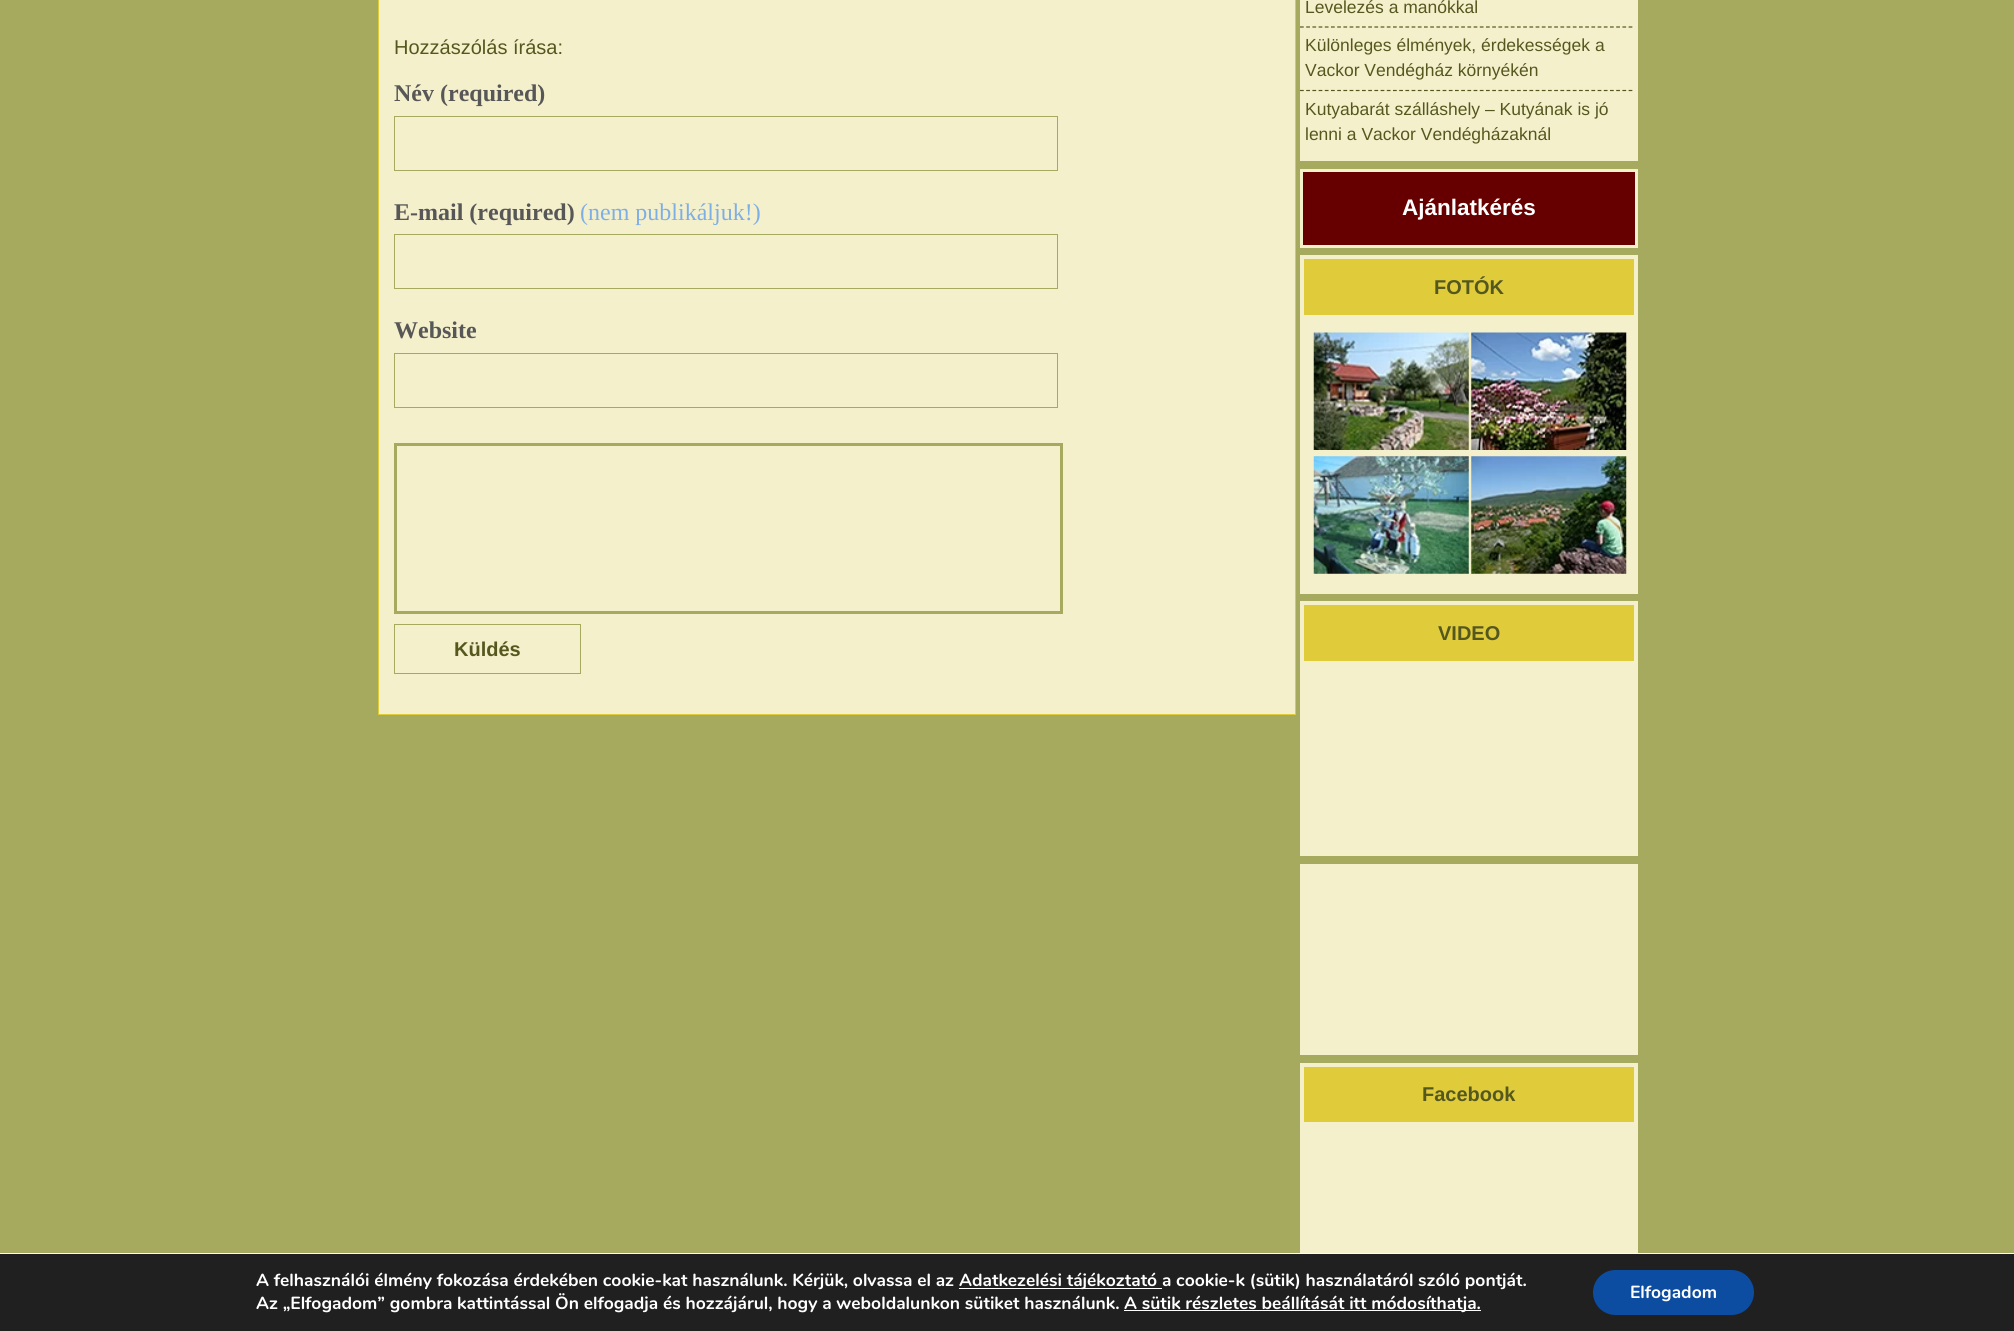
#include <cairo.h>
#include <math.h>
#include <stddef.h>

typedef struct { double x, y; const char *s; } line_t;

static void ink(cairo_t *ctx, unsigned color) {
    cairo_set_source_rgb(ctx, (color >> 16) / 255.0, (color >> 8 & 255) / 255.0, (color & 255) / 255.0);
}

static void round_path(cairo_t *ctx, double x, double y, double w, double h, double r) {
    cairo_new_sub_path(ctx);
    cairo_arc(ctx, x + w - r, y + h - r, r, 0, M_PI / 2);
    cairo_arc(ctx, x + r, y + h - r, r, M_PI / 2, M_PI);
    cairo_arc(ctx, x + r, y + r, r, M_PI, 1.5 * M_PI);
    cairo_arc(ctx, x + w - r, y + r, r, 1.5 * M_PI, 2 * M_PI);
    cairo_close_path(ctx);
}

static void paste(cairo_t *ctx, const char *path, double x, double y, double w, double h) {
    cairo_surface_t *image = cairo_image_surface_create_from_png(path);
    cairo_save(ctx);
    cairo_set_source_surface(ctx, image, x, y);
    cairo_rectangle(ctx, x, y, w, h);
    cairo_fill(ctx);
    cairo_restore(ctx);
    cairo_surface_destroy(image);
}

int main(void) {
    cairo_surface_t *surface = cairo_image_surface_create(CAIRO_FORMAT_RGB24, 2014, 1331);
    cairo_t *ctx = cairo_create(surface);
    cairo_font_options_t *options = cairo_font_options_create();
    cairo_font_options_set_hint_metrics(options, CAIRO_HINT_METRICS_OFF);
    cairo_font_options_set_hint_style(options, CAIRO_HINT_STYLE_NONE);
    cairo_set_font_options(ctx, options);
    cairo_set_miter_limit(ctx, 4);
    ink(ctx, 0xA6AA5F);
    cairo_paint(ctx);
    ink(ctx, 0xF5F0CC);
    cairo_rectangle(ctx, 378.5, -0.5, 917, 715);
    cairo_fill_preserve(ctx);
    ink(ctx, 0xE0CB3B);
    cairo_set_line_width(ctx, 1);
    cairo_stroke(ctx);
    cairo_select_font_face(ctx, "Liberation Sans", CAIRO_FONT_SLANT_NORMAL, CAIRO_FONT_WEIGHT_NORMAL);
    cairo_set_font_size(ctx, 20);
    ink(ctx, 0x55581E);
    cairo_move_to(ctx, 394, 54);
    cairo_show_text(ctx, "Hozzászólás írása:");
    cairo_select_font_face(ctx, "Liberation Serif", CAIRO_FONT_SLANT_NORMAL, CAIRO_FONT_WEIGHT_BOLD);
    cairo_set_font_size(ctx, 24);
    ink(ctx, 0x575757);
    cairo_move_to(ctx, 394, 101);
    cairo_show_text(ctx, "Név (required)");
    cairo_rectangle(ctx, 394.5, 116.5, 663, 54);
    ink(ctx, 0xA6AA5F);
    cairo_stroke(ctx);
    ink(ctx, 0x575757);
    cairo_move_to(ctx, 394, 220);
    cairo_show_text(ctx, "E-mail (required)");
    cairo_select_font_face(ctx, "Liberation Serif", CAIRO_FONT_SLANT_NORMAL, CAIRO_FONT_WEIGHT_NORMAL);
    ink(ctx, 0x7DAFE6);
    cairo_move_to(ctx, 580, 220);
    cairo_show_text(ctx, "(nem publikáljuk!)");
    cairo_rectangle(ctx, 394.5, 234.5, 663, 54);
    ink(ctx, 0xA6AA5F);
    cairo_stroke(ctx);
    cairo_select_font_face(ctx, "Liberation Serif", CAIRO_FONT_SLANT_NORMAL, CAIRO_FONT_WEIGHT_BOLD);
    ink(ctx, 0x575757);
    cairo_move_to(ctx, 394, 338);
    cairo_show_text(ctx, "Website");
    cairo_rectangle(ctx, 394.5, 353.5, 663, 54);
    ink(ctx, 0xA6AA5F);
    cairo_stroke(ctx);
    cairo_rectangle(ctx, 395.5, 444.5, 666, 168);
    cairo_set_line_width(ctx, 3);
    cairo_stroke(ctx);
    cairo_rectangle(ctx, 394.5, 624.5, 186, 49);
    cairo_set_line_width(ctx, 1);
    cairo_stroke(ctx);
    cairo_select_font_face(ctx, "Liberation Sans", CAIRO_FONT_SLANT_NORMAL, CAIRO_FONT_WEIGHT_BOLD);
    cairo_set_font_size(ctx, 20);
    ink(ctx, 0x55581E);
    cairo_move_to(ctx, 454, 656);
    cairo_show_text(ctx, "Küldés");
    ink(ctx, 0xF5F0CC);
    cairo_rectangle(ctx, 1300, 0, 338, 161);
    cairo_fill(ctx);
    cairo_new_path(ctx);
    cairo_move_to(ctx, 1300, 27);
    cairo_line_to(ctx, 1632.5, 27);
    ink(ctx, 0x55581E);
    cairo_set_line_width(ctx, 1.2);
    cairo_set_dash(ctx, (double[]){3.75, 2.45}, 2, 0);
    cairo_stroke(ctx);
    cairo_select_font_face(ctx, "Liberation Sans", CAIRO_FONT_SLANT_NORMAL, CAIRO_FONT_WEIGHT_NORMAL);
    cairo_set_font_size(ctx, 17.5);
    cairo_move_to(ctx, 1305, 13);
    cairo_show_text(ctx, "Levelezés a manókkal");
    cairo_new_path(ctx);
    cairo_move_to(ctx, 1300, 90.5);
    cairo_line_to(ctx, 1632.5, 90.5);
    cairo_stroke(ctx);
    {
        static const line_t items[] = {
            {1305, 51, "Különleges élmények, érdekességek a"},
            {1305, 76, "Vackor Vendégház környékén"},
            {1305, 115, "Kutyabarát szálláshely – Kutyának is jó"},
            {1305, 140, "lenni a Vackor Vendégházaknál"},
        };
        for (size_t i = 0; i < sizeof items / sizeof *items; i++) {
            cairo_move_to(ctx, items[i].x, items[i].y);
            cairo_show_text(ctx, items[i].s);
        }
    }
    ink(ctx, 0x660000);
    cairo_rectangle(ctx, 1301.5, 170.5, 335, 76);
    cairo_fill_preserve(ctx);
    ink(ctx, 0xF5F0CC);
    cairo_set_line_width(ctx, 3);
    cairo_set_dash(ctx, NULL, 0, 0);
    cairo_stroke(ctx);
    cairo_select_font_face(ctx, "Liberation Sans", CAIRO_FONT_SLANT_NORMAL, CAIRO_FONT_WEIGHT_BOLD);
    cairo_set_font_size(ctx, 22.5);
    ink(ctx, 0xFFFFFF);
    cairo_move_to(ctx, 1402, 215);
    cairo_show_text(ctx, "Ajánlatkérés");
    ink(ctx, 0xF5F0CC);
    cairo_rectangle(ctx, 1300, 319, 338, 275);
    cairo_fill(ctx);
    ink(ctx, 0xE0CB3B);
    cairo_rectangle(ctx, 1302, 257, 334, 60);
    cairo_fill_preserve(ctx);
    ink(ctx, 0xF5F0CC);
    cairo_set_line_width(ctx, 4);
    cairo_stroke(ctx);
    cairo_set_font_size(ctx, 20);
    ink(ctx, 0x55581E);
    cairo_move_to(ctx, 1434, 294);
    cairo_show_text(ctx, "FOTÓK");
    paste(ctx, "media/1.png", 1313, 332, 156, 118);
    paste(ctx, "media/2.png", 1471, 332, 156, 118);
    paste(ctx, "media/3.png", 1313, 456, 156, 118);
    paste(ctx, "media/4.png", 1471, 456, 156, 118);
    ink(ctx, 0xF5F0CC);
    cairo_rectangle(ctx, 1300, 665, 338, 191);
    cairo_fill(ctx);
    ink(ctx, 0xE0CB3B);
    cairo_rectangle(ctx, 1302, 603, 334, 60);
    cairo_fill_preserve(ctx);
    ink(ctx, 0xF5F0CC);
    cairo_stroke(ctx);
    ink(ctx, 0x55581E);
    cairo_move_to(ctx, 1438, 640);
    cairo_show_text(ctx, "VIDEO");
    ink(ctx, 0xF5F0CC);
    cairo_rectangle(ctx, 1300, 864, 338, 191);
    cairo_fill(ctx);
    cairo_rectangle(ctx, 1300, 1126, 338, 127);
    cairo_fill(ctx);
    ink(ctx, 0xE0CB3B);
    cairo_rectangle(ctx, 1302, 1065, 334, 59);
    cairo_fill_preserve(ctx);
    ink(ctx, 0xF5F0CC);
    cairo_stroke(ctx);
    ink(ctx, 0x55581E);
    cairo_move_to(ctx, 1422, 1101);
    cairo_show_text(ctx, "Facebook");
    ink(ctx, 0x202020);
    cairo_rectangle(ctx, 0, 1254, 2014, 77);
    cairo_fill(ctx);
    ink(ctx, 0xFFFFFF);
    cairo_rectangle(ctx, 0, 1253, 2014, 1);
    cairo_fill(ctx);
    cairo_select_font_face(ctx, "Nunito", CAIRO_FONT_SLANT_NORMAL, CAIRO_FONT_WEIGHT_BOLD);
    cairo_set_font_size(ctx, 17.5);
    cairo_move_to(ctx, 256, 1286);
    cairo_show_text(ctx, "A felhasználói élmény fokozása érdekében cookie-kat használunk. Kérjük, olvassa el az");
    cairo_rectangle(ctx, 959, 1288, 203, 1);
    cairo_fill(ctx);
    cairo_move_to(ctx, 959, 1286);
    cairo_show_text(ctx, "Adatkezelési tájékoztató a cookie-k (sütik) használatáról szóló pontját.");
    cairo_move_to(ctx, 256, 1309);
    cairo_show_text(ctx, "Az „Elfogadom” gombra kattintással Ön elfogadja és hozzájárul, hogy a weboldalunkon sütiket használunk.");
    cairo_rectangle(ctx, 1124, 1310, 357, 1);
    cairo_fill(ctx);
    cairo_move_to(ctx, 1124, 1309);
    cairo_show_text(ctx, "A sütik részletes beállítását itt módosíthatja.");
    ink(ctx, 0x0C4DA2);
    round_path(ctx, 1593, 1270, 161, 45, 22.5);
    cairo_fill(ctx);
    ink(ctx, 0xFFFFFF);
    cairo_move_to(ctx, 1630, 1298);
    cairo_show_text(ctx, "Elfogadom");
    cairo_surface_write_to_png(surface, "image.png");
    cairo_font_options_destroy(options);
    cairo_destroy(ctx);
    cairo_surface_destroy(surface);
    return 0;
}
